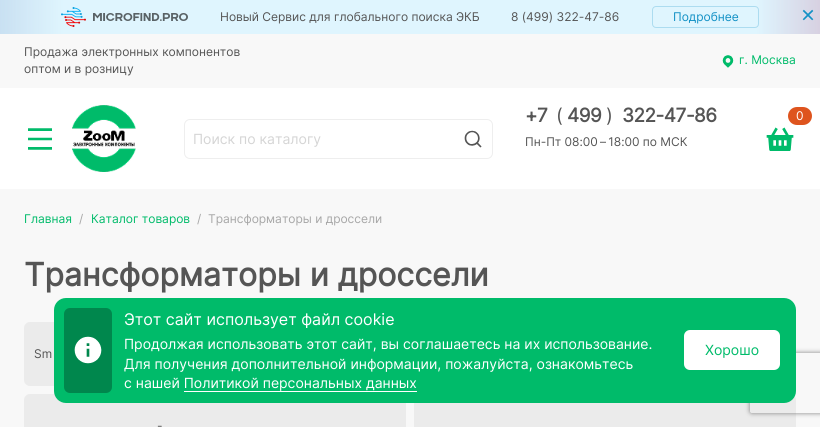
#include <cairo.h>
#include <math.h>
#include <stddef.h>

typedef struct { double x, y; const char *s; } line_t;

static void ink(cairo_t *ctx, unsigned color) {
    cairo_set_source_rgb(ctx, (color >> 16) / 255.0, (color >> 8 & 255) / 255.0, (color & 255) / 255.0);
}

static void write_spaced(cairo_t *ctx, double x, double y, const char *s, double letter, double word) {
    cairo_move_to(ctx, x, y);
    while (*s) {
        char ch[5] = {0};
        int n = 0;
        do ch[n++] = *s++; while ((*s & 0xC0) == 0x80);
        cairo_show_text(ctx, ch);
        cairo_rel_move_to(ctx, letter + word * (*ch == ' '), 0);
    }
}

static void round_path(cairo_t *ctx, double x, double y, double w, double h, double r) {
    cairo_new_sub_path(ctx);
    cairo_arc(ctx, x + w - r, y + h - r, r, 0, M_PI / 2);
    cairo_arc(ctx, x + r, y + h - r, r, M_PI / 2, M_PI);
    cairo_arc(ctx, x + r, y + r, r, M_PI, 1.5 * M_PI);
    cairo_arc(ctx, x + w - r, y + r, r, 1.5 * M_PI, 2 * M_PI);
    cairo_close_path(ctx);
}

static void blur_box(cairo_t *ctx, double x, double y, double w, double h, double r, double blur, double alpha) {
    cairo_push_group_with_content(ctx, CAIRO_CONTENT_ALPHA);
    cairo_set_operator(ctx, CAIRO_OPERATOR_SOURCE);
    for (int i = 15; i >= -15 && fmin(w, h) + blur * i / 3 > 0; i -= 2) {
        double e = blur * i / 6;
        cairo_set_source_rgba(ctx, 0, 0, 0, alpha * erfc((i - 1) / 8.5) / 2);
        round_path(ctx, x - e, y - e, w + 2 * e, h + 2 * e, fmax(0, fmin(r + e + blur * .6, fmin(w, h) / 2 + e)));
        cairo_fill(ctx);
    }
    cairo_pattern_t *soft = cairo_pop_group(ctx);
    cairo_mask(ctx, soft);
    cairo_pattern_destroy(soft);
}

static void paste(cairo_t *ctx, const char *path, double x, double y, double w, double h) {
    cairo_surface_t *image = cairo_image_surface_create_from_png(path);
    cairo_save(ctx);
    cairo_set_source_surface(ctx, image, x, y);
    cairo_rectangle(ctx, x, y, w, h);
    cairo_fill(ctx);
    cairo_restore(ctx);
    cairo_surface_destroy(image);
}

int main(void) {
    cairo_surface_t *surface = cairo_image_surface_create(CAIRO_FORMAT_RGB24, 820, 427);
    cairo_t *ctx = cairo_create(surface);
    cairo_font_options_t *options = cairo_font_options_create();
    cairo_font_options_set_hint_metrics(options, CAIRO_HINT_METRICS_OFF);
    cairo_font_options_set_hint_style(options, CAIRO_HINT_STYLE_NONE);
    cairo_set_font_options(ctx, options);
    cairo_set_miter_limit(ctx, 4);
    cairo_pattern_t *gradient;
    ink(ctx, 0xF8F8F8);
    cairo_paint(ctx);
    gradient = cairo_pattern_create_linear(-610, 17, 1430, 17);
    cairo_pattern_add_color_stop_rgba(gradient, 0, 0.686, 0.851, 0.898, 1);
    cairo_pattern_add_color_stop_rgba(gradient, 0.25, 0.318, 0.529, 0.745, 1);
    cairo_pattern_add_color_stop_rgba(gradient, 0.5, 0.678, 0.447, 0.69, 1);
    cairo_pattern_add_color_stop_rgba(gradient, 0.75, 0.706, 0.11, 0.298, 1);
    cairo_pattern_add_color_stop_rgba(gradient, 1, 0.773, 0.176, 0.427, 1);
    cairo_set_source(ctx, gradient);
    cairo_pattern_destroy(gradient);
    cairo_rectangle(ctx, 0, 0, 820, 34);
    cairo_fill(ctx);
    gradient = cairo_pattern_create_linear(-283, 17, 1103, 17);
    cairo_pattern_add_color_stop_rgba(gradient, 0, 0.875, 0.961, 0.996, 0);
    cairo_pattern_add_color_stop_rgba(gradient, 0.25, 0.875, 0.961, 0.996, 1);
    cairo_pattern_add_color_stop_rgba(gradient, 0.75, 0.875, 0.961, 0.996, 1);
    cairo_pattern_add_color_stop_rgba(gradient, 1, 0.875, 0.961, 0.996, 0);
    cairo_set_source(ctx, gradient);
    cairo_pattern_destroy(gradient);
    cairo_rectangle(ctx, 0, 0, 820, 34);
    cairo_fill(ctx);
    paste(ctx, "media/1.png", 61, 7, 127, 20);
    cairo_select_font_face(ctx, "Inter", CAIRO_FONT_SLANT_NORMAL, CAIRO_FONT_WEIGHT_NORMAL);
    cairo_set_font_size(ctx, 12);
    ink(ctx, 0x555555);
    cairo_move_to(ctx, 220, 21);
    cairo_show_text(ctx, "Новый Сервис для глобального поиска ЭКБ");
    cairo_move_to(ctx, 511, 21);
    cairo_show_text(ctx, "8 (499) 322-47-86");
    round_path(ctx, 652.5, 6.5, 106, 21, 3.5);
    ink(ctx, 0xACDCF0);
    cairo_set_line_width(ctx, 1);
    cairo_stroke(ctx);
    ink(ctx, 0x1291C5);
    cairo_move_to(ctx, 673, 21);
    cairo_show_text(ctx, "Подробнее");
    paste(ctx, "media/2.png", 802, 9, 12, 12);
    ink(ctx, 0x555555);
    cairo_move_to(ctx, 24, 56);
    cairo_show_text(ctx, "Продажа электронных компонентов");
    cairo_move_to(ctx, 24, 73);
    cairo_show_text(ctx, "оптом и в розницу");
    paste(ctx, "media/3.png", 722, 55, 12, 13);
    ink(ctx, 0x00BB6A);
    cairo_move_to(ctx, 739, 64);
    cairo_show_text(ctx, "г. Москва");
    ink(ctx, 0xFFFFFF);
    cairo_rectangle(ctx, 0, 88, 820, 101);
    cairo_fill(ctx);
    paste(ctx, "media/4.png", 72, 105, 64, 67);
    cairo_select_font_face(ctx, "Inter", CAIRO_FONT_SLANT_NORMAL, CAIRO_FONT_WEIGHT_BOLD);
    cairo_set_font_size(ctx, 19);
    ink(ctx, 0x555555);
    write_spaced(ctx, 525, 122, "+7", -0.5, 0);
    cairo_select_font_face(ctx, "Inter", CAIRO_FONT_SLANT_NORMAL, CAIRO_FONT_WEIGHT_NORMAL);
    write_spaced(ctx, 556, 122, "(", -0.5, 0);
    cairo_select_font_face(ctx, "Inter", CAIRO_FONT_SLANT_NORMAL, CAIRO_FONT_WEIGHT_BOLD);
    write_spaced(ctx, 567, 122, "499", -0.5, 0);
    cairo_select_font_face(ctx, "Inter", CAIRO_FONT_SLANT_NORMAL, CAIRO_FONT_WEIGHT_NORMAL);
    write_spaced(ctx, 606, 122, ")", -0.5, 0);
    cairo_select_font_face(ctx, "Inter", CAIRO_FONT_SLANT_NORMAL, CAIRO_FONT_WEIGHT_BOLD);
    write_spaced(ctx, 622, 122, "322-47-86", -0.5, 0);
    cairo_select_font_face(ctx, "Inter", CAIRO_FONT_SLANT_NORMAL, CAIRO_FONT_WEIGHT_NORMAL);
    cairo_set_font_size(ctx, 12);
    cairo_move_to(ctx, 525, 146);
    cairo_show_text(ctx, "Пн-Пт 08:00 – 18:00 по МСК");
    ink(ctx, 0xDE541E);
    round_path(ctx, 788, 107, 24, 18, 9);
    cairo_fill(ctx);
    ink(ctx, 0xFFFFFF);
    cairo_move_to(ctx, 796, 120);
    cairo_show_text(ctx, "0");
    paste(ctx, "media/5.png", 766, 127, 28, 24);
    paste(ctx, "media/6.png", 28, 128, 24, 22);
    round_path(ctx, 184.5, 119.5, 308, 39, 5.5);
    ink(ctx, 0xEEEEEE);
    cairo_stroke(ctx);
    cairo_set_font_size(ctx, 14);
    ink(ctx, 0xD5D5D5);
    cairo_move_to(ctx, 193, 144);
    cairo_show_text(ctx, "Поиск по каталогу");
    paste(ctx, "media/7.png", 464, 130, 18, 18);
    cairo_set_font_size(ctx, 12);
    ink(ctx, 0x00BB6A);
    cairo_move_to(ctx, 24, 223);
    cairo_show_text(ctx, "Главная");
    ink(ctx, 0xA7A7A7);
    cairo_move_to(ctx, 79, 223);
    cairo_show_text(ctx, "/");
    ink(ctx, 0x00BB6A);
    cairo_move_to(ctx, 91, 223);
    cairo_show_text(ctx, "Каталог товаров");
    ink(ctx, 0xA7A7A7);
    cairo_move_to(ctx, 197, 223);
    cairo_show_text(ctx, "/");
    cairo_move_to(ctx, 208, 223);
    cairo_show_text(ctx, "Трансформаторы и дроссели");
    cairo_select_font_face(ctx, "Inter", CAIRO_FONT_SLANT_NORMAL, CAIRO_FONT_WEIGHT_BOLD);
    cairo_set_font_size(ctx, 32);
    ink(ctx, 0x555555);
    cairo_move_to(ctx, 24, 286);
    cairo_show_text(ctx, "Трансформаторы и дроссели");
    ink(ctx, 0xEBEBEB);
    round_path(ctx, 24, 322, 382, 64, 6);
    cairo_fill(ctx);
    cairo_select_font_face(ctx, "Inter", CAIRO_FONT_SLANT_NORMAL, CAIRO_FONT_WEIGHT_NORMAL);
    cairo_set_font_size(ctx, 12);
    ink(ctx, 0x555555);
    cairo_move_to(ctx, 34, 358);
    cairo_show_text(ctx, "Sm");
    ink(ctx, 0xEBEBEB);
    round_path(ctx, 24, 394, 382, 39, 6);
    cairo_fill(ctx);
    ink(ctx, 0x555555);
    cairo_move_to(ctx, 157, 430);
    cairo_show_text(ctx, "-");
    ink(ctx, 0xEBEBEB);
    round_path(ctx, 414, 394, 382, 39, 6);
    cairo_fill(ctx);
    cairo_save(ctx);
    cairo_set_fill_rule(ctx, CAIRO_FILL_RULE_EVEN_ODD);
    cairo_new_path(ctx);
    cairo_move_to(ctx, 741, 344);
    cairo_line_to(ctx, 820, 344);
    cairo_line_to(ctx, 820, 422);
    cairo_line_to(ctx, 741, 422);
    cairo_close_path(ctx);
    cairo_move_to(ctx, 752, 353);
    cairo_line_to(ctx, 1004, 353);
    cairo_curve_to(ctx, 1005, 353, 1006, 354, 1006, 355);
    cairo_line_to(ctx, 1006, 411);
    cairo_curve_to(ctx, 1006, 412, 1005, 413, 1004, 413);
    cairo_line_to(ctx, 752, 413);
    cairo_curve_to(ctx, 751, 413, 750, 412, 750, 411);
    cairo_line_to(ctx, 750, 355);
    cairo_curve_to(ctx, 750, 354, 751, 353, 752, 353);
    cairo_close_path(ctx);
    cairo_clip(ctx);
    ink(ctx, 0x808080);
    blur_box(ctx, 750, 353, 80, 60, 2, 2.5, 1);
    cairo_restore(ctx);
    ink(ctx, 0x00BB6A);
    round_path(ctx, 54, 298, 742, 105, 12);
    cairo_fill(ctx);
    ink(ctx, 0x00874D);
    round_path(ctx, 64, 308, 48, 85, 6);
    cairo_fill(ctx);
    paste(ctx, "media/8.png", 74, 336, 28, 28);
    cairo_set_font_size(ctx, 16);
    ink(ctx, 0xFFFFFF);
    cairo_move_to(ctx, 124, 325);
    cairo_show_text(ctx, "Этот сайт использует файл cookie");
    cairo_set_font_size(ctx, 14);
    {
        static const line_t items[] = {
            {124, 349, "Продолжая использовать этот сайт, вы соглашаетесь на их использование."},
            {124, 369, "Для получения дополнительной информации, пожалуйста, ознакомьтесь"},
            {124, 388, "с нашей Политикой персональных данных"},
        };
        for (size_t i = 0; i < sizeof items / sizeof *items; i++) {
            cairo_move_to(ctx, items[i].x, items[i].y);
            cairo_show_text(ctx, items[i].s);
        }
    }
    cairo_rectangle(ctx, 184, 391, 233, 1);
    cairo_fill(ctx);
    round_path(ctx, 684, 330, 96, 40, 6);
    cairo_fill(ctx);
    ink(ctx, 0x00BB6A);
    cairo_move_to(ctx, 705, 355);
    cairo_show_text(ctx, "Хорошо");
    cairo_surface_write_to_png(surface, "image.png");
    cairo_font_options_destroy(options);
    cairo_destroy(ctx);
    cairo_surface_destroy(surface);
    return 0;
}
